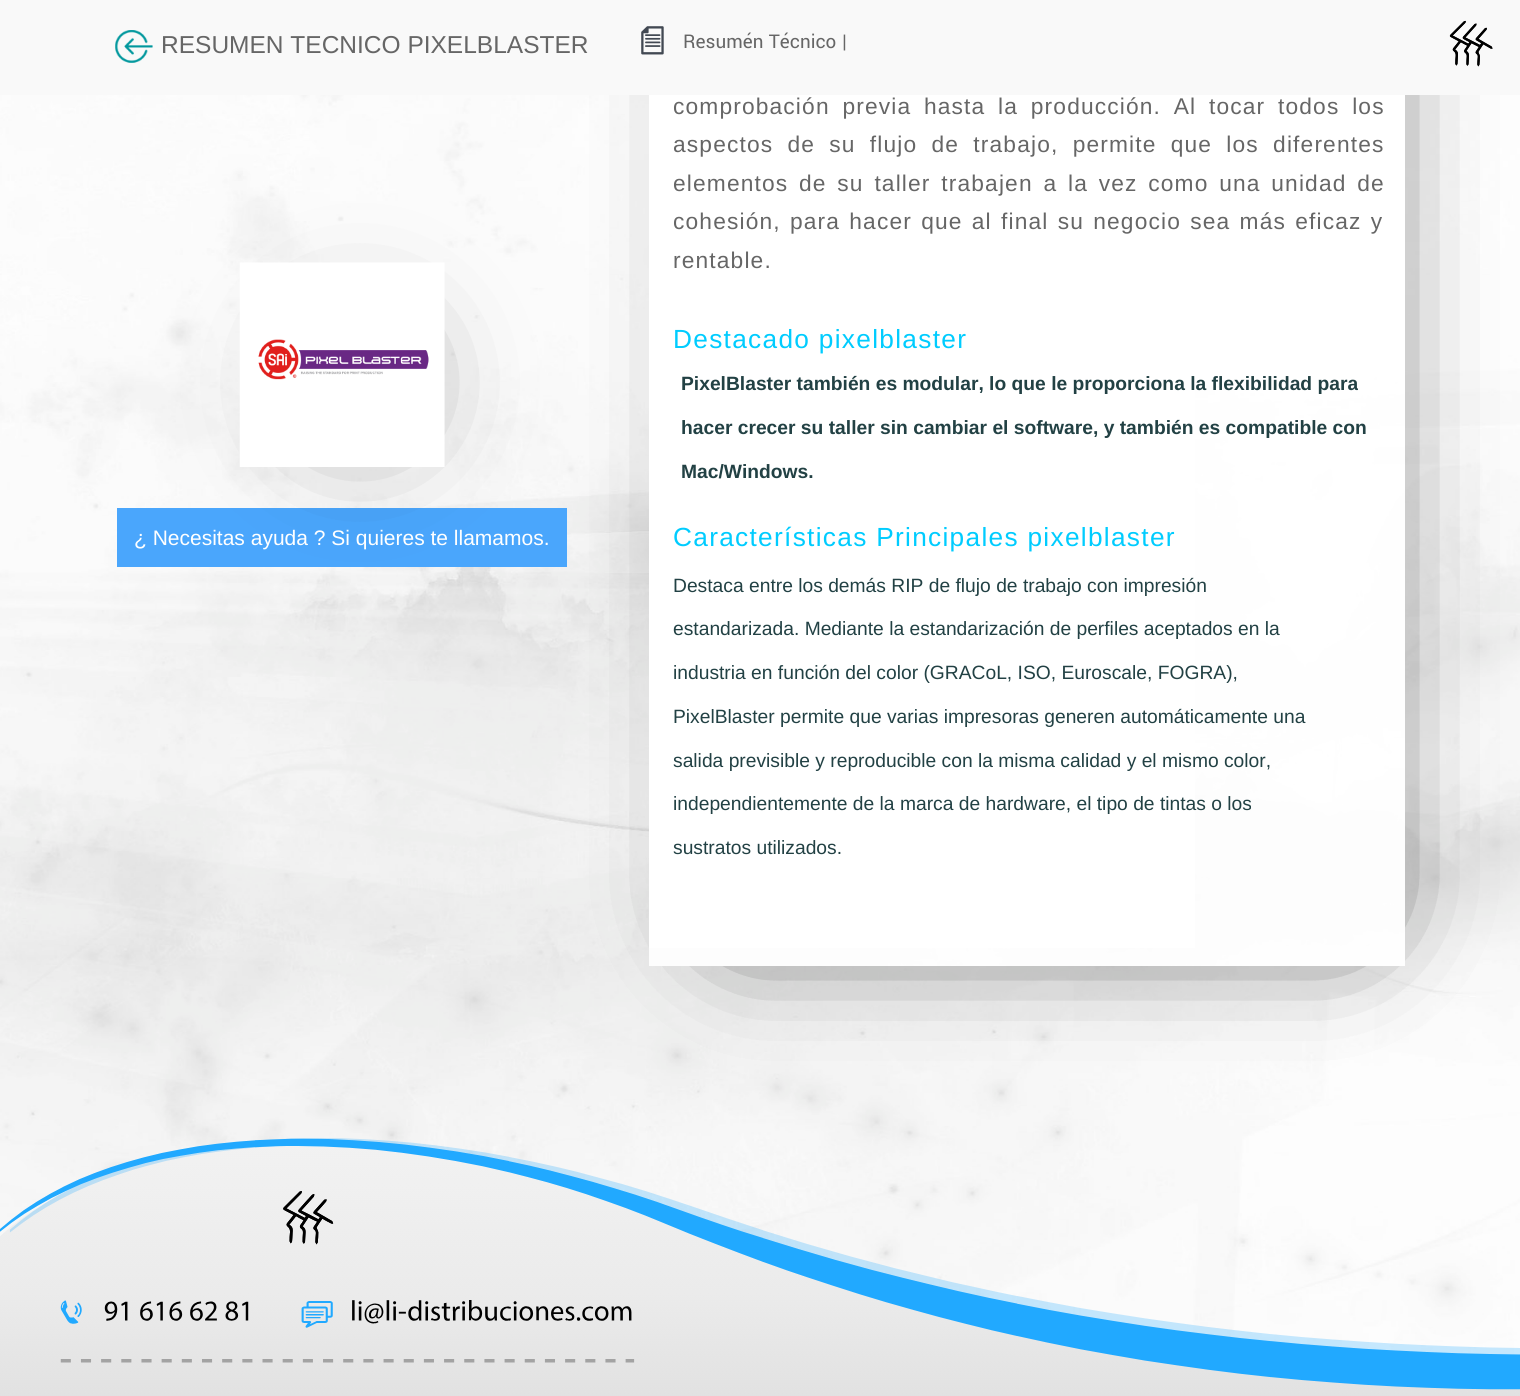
#include <cairo.h>
#include <math.h>
#include <stddef.h>

typedef struct { double x, y; const char *s; } line_t;

static void ink(cairo_t *ctx, unsigned color) {
    cairo_set_source_rgb(ctx, (color >> 16) / 255.0, (color >> 8 & 255) / 255.0, (color & 255) / 255.0);
}

static void write_spaced(cairo_t *ctx, double x, double y, const char *s, double letter, double word) {
    cairo_move_to(ctx, x, y);
    while (*s) {
        char ch[5] = {0};
        int n = 0;
        do ch[n++] = *s++; while ((*s & 0xC0) == 0x80);
        cairo_show_text(ctx, ch);
        cairo_rel_move_to(ctx, letter + word * (*ch == ' '), 0);
    }
}

static void round_path(cairo_t *ctx, double x, double y, double w, double h, double r) {
    cairo_new_sub_path(ctx);
    cairo_arc(ctx, x + w - r, y + h - r, r, 0, M_PI / 2);
    cairo_arc(ctx, x + r, y + h - r, r, M_PI / 2, M_PI);
    cairo_arc(ctx, x + r, y + r, r, M_PI, 1.5 * M_PI);
    cairo_arc(ctx, x + w - r, y + r, r, 1.5 * M_PI, 2 * M_PI);
    cairo_close_path(ctx);
}

static void blur_box(cairo_t *ctx, double x, double y, double w, double h, double r, double blur, double alpha) {
    cairo_push_group_with_content(ctx, CAIRO_CONTENT_ALPHA);
    cairo_set_operator(ctx, CAIRO_OPERATOR_SOURCE);
    for (int i = 15; i >= -15 && fmin(w, h) + blur * i / 3 > 0; i -= 2) {
        double e = blur * i / 6;
        cairo_set_source_rgba(ctx, 0, 0, 0, alpha * erfc((i - 1) / 8.5) / 2);
        round_path(ctx, x - e, y - e, w + 2 * e, h + 2 * e, fmax(0, fmin(r + e + blur * .6, fmin(w, h) / 2 + e)));
        cairo_fill(ctx);
    }
    cairo_pattern_t *soft = cairo_pop_group(ctx);
    cairo_mask(ctx, soft);
    cairo_pattern_destroy(soft);
}

static void paste(cairo_t *ctx, const char *path, double x, double y, double w, double h) {
    cairo_surface_t *image = cairo_image_surface_create_from_png(path);
    cairo_save(ctx);
    cairo_set_source_surface(ctx, image, x, y);
    cairo_rectangle(ctx, x, y, w, h);
    cairo_fill(ctx);
    cairo_restore(ctx);
    cairo_surface_destroy(image);
}

int main(void) {
    cairo_surface_t *surface = cairo_image_surface_create(CAIRO_FORMAT_RGB24, 1520, 1396);
    cairo_t *ctx = cairo_create(surface);
    cairo_font_options_t *options = cairo_font_options_create();
    cairo_font_options_set_hint_metrics(options, CAIRO_HINT_METRICS_OFF);
    cairo_font_options_set_hint_style(options, CAIRO_HINT_STYLE_NONE);
    cairo_set_font_options(ctx, options);
    cairo_set_miter_limit(ctx, 4);
    ink(ctx, 0xFFFFFF);
    cairo_paint(ctx);
    paste(ctx, "media/1.png", 0, 95, 1520, 1260);
    cairo_save(ctx);
    cairo_set_fill_rule(ctx, CAIRO_FILL_RULE_EVEN_ODD);
    cairo_new_path(ctx);
    cairo_move_to(ctx, 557, 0);
    cairo_line_to(ctx, 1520, 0);
    cairo_line_to(ctx, 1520, 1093);
    cairo_line_to(ctx, 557, 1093);
    cairo_close_path(ctx);
    cairo_move_to(ctx, 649, -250);
    cairo_line_to(ctx, 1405, -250);
    cairo_line_to(ctx, 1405, 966);
    cairo_line_to(ctx, 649, 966);
    cairo_close_path(ctx);
    cairo_clip(ctx);
    ink(ctx, 0x000000);
    blur_box(ctx, 740, -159, 609, 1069, 0, 60.5, 0.6);
    cairo_restore(ctx);
    cairo_set_source_rgba(ctx, 1, 1, 1, 0.9);
    cairo_rectangle(ctx, 649, 95, 756, 871);
    cairo_fill(ctx);
    cairo_save(ctx);
    cairo_set_fill_rule(ctx, CAIRO_FILL_RULE_EVEN_ODD);
    cairo_new_path(ctx);
    cairo_move_to(ctx, 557, 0);
    cairo_line_to(ctx, 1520, 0);
    cairo_line_to(ctx, 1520, 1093);
    cairo_line_to(ctx, 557, 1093);
    cairo_close_path(ctx);
    cairo_move_to(ctx, 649, -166);
    cairo_line_to(ctx, 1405, -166);
    cairo_line_to(ctx, 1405, 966);
    cairo_line_to(ctx, 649, 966);
    cairo_close_path(ctx);
    cairo_clip(ctx);
    ink(ctx, 0x000000);
    blur_box(ctx, 740, -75, 609, 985, 0, 60.5, 0.6);
    cairo_restore(ctx);
    ink(ctx, 0xF9F9F9);
    cairo_rectangle(ctx, 0, 0, 1520, 95);
    cairo_fill(ctx);
    paste(ctx, "media/2.png", 115, 30, 38, 33);
    cairo_select_font_face(ctx, "Liberation Sans", CAIRO_FONT_SLANT_NORMAL, CAIRO_FONT_WEIGHT_NORMAL);
    cairo_set_font_size(ctx, 24.5);
    ink(ctx, 0x666666);
    cairo_move_to(ctx, 161, 53);
    cairo_show_text(ctx, "RESUMEN TECNICO PIXELBLASTER");
    paste(ctx, "media/3.png", 641, 26, 23, 29);
    cairo_select_font_face(ctx, "Yantramanav", CAIRO_FONT_SLANT_NORMAL, CAIRO_FONT_WEIGHT_NORMAL);
    cairo_set_font_size(ctx, 21);
    cairo_move_to(ctx, 683, 48);
    cairo_show_text(ctx, "Resumén Técnico |");
    paste(ctx, "media/4.png", 1449, 20, 44, 47);
    ink(ctx, 0x4AA6FC);
    cairo_rectangle(ctx, 117, 508, 450, 59);
    cairo_fill(ctx);
    ink(ctx, 0x000000);
    blur_box(ctx, 331, 354, 58, 57, 0, 60.5, 0.6);
    paste(ctx, "media/5.png", 239, 262, 206, 205);
    cairo_select_font_face(ctx, "Liberation Sans", CAIRO_FONT_SLANT_NORMAL, CAIRO_FONT_WEIGHT_NORMAL);
    ink(ctx, 0xFFFFFF);
    cairo_move_to(ctx, 134, 545);
    cairo_show_text(ctx, "¿ Necesitas ayuda ? Si quieres te llamamos.");
    cairo_set_source_rgba(ctx, 1, 1, 1, 0.9);
    cairo_rectangle(ctx, 649, 95, 546, 853);
    cairo_fill(ctx);
    cairo_set_font_size(ctx, 22.75);
    ink(ctx, 0x666666);
    write_spaced(ctx, 673, 114, "comprobación previa hasta la producción. Al tocar todos los", 1.15, 5.25);
    write_spaced(ctx, 673, 152, "aspectos de su flujo de trabajo, permite que los diferentes", 1.15, 6.75);
    write_spaced(ctx, 673, 191, "elementos de su taller trabajen a la vez como una unidad de", 1.15, 3.25);
    write_spaced(ctx, 673, 229, "cohesión, para hacer que al final su negocio sea más eficaz y", 1.15, 1.75);
    write_spaced(ctx, 673, 268, "rentable.", 1.15, 0);
    cairo_set_font_size(ctx, 26.25);
    ink(ctx, 0x00CCFF);
    write_spaced(ctx, 673, 348, "Destacado pixelblaster", 1.3, 0);
    cairo_select_font_face(ctx, "Liberation Sans", CAIRO_FONT_SLANT_NORMAL, CAIRO_FONT_WEIGHT_BOLD);
    cairo_set_font_size(ctx, 19.25);
    ink(ctx, 0x224144);
    {
        static const line_t items[] = {
            {681, 390, "PixelBlaster también es modular, lo que le proporciona la flexibilidad para"},
            {681, 434, "hacer crecer su taller sin cambiar el software, y también es compatible con"},
            {681, 478, "Mac/Windows."},
        };
        for (size_t i = 0; i < sizeof items / sizeof *items; i++) {
            cairo_move_to(ctx, items[i].x, items[i].y);
            cairo_show_text(ctx, items[i].s);
        }
    }
    cairo_select_font_face(ctx, "Liberation Sans", CAIRO_FONT_SLANT_NORMAL, CAIRO_FONT_WEIGHT_NORMAL);
    cairo_set_font_size(ctx, 26.25);
    ink(ctx, 0x00CCFF);
    write_spaced(ctx, 673, 546, "Características Principales pixelblaster", 1.3, 0);
    cairo_set_font_size(ctx, 19.25);
    ink(ctx, 0x224144);
    {
        static const line_t items[] = {
            {673, 592, "Destaca entre los demás RIP de flujo de trabajo con impresión"},
            {673, 635, "estandarizada. Mediante la estandarización de perfiles aceptados en la"},
            {673, 679, "industria en función del color (GRACoL, ISO, Euroscale, FOGRA),"},
            {673, 723, "PixelBlaster permite que varias impresoras generen automáticamente una"},
            {673, 767, "salida previsible y reproducible con la misma calidad y el mismo color,"},
            {673, 810, "independientemente de la marca de hardware, el tipo de tintas o los"},
            {673, 854, "sustratos utilizados."},
        };
        for (size_t i = 0; i < sizeof items / sizeof *items; i++) {
            cairo_move_to(ctx, items[i].x, items[i].y);
            cairo_show_text(ctx, items[i].s);
        }
    }
    paste(ctx, "media/6.png", 0, 1138, 1520, 258);
    cairo_surface_write_to_png(surface, "image.png");
    cairo_font_options_destroy(options);
    cairo_destroy(ctx);
    cairo_surface_destroy(surface);
    return 0;
}
